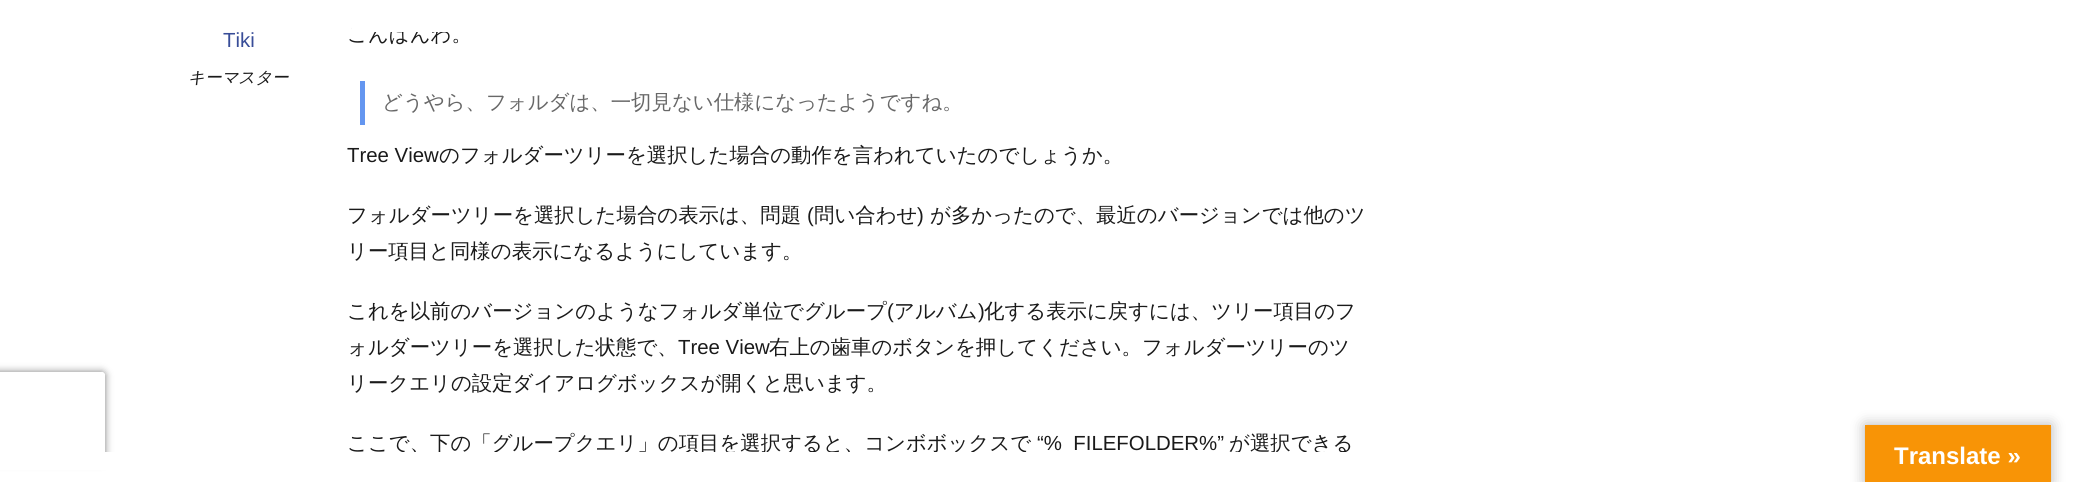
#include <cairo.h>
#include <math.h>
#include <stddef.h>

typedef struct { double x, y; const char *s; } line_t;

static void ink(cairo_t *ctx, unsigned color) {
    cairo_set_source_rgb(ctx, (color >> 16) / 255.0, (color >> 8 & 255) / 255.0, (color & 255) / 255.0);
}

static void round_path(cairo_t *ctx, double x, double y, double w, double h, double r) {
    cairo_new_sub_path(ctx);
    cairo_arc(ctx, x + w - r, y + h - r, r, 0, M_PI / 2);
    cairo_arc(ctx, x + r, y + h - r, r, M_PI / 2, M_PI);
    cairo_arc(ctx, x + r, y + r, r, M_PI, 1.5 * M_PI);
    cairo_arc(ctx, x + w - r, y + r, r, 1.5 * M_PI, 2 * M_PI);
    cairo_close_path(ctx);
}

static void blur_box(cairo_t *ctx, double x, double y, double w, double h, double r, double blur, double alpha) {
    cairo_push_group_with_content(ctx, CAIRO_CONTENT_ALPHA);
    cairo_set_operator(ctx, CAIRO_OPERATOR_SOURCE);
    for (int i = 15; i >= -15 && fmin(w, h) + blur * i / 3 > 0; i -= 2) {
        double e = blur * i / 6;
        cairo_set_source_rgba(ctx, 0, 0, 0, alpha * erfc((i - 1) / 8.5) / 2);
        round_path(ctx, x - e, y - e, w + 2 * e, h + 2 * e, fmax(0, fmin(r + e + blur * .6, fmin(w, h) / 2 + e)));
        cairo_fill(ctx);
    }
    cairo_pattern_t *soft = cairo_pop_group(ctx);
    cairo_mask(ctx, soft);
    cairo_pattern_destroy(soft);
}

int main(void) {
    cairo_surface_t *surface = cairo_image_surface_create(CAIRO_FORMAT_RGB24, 2080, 482);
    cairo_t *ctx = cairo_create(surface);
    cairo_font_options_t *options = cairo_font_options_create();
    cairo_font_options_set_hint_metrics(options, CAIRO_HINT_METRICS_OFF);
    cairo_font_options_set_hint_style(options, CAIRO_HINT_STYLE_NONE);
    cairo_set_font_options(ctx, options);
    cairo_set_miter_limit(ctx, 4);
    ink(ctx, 0xFFFFFF);
    cairo_paint(ctx);
    cairo_save(ctx);
    cairo_set_fill_rule(ctx, CAIRO_FILL_RULE_EVEN_ODD);
    cairo_new_path(ctx);
    cairo_move_to(ctx, 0, 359);
    cairo_line_to(ctx, 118, 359);
    cairo_line_to(ctx, 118, 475);
    cairo_line_to(ctx, 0, 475);
    cairo_close_path(ctx);
    cairo_move_to(ctx, -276, 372);
    cairo_line_to(ctx, 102, 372);
    cairo_curve_to(ctx, 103.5, 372, 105, 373.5, 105, 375);
    cairo_line_to(ctx, 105, 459);
    cairo_curve_to(ctx, 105, 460.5, 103.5, 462, 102, 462);
    cairo_line_to(ctx, -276, 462);
    cairo_curve_to(ctx, -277.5, 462, -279, 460.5, -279, 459);
    cairo_line_to(ctx, -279, 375);
    cairo_curve_to(ctx, -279, 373.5, -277.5, 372, -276, 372);
    cairo_close_path(ctx);
    cairo_clip(ctx);
    ink(ctx, 0x808080);
    blur_box(ctx, -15, 372, 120, 90, 3, 4, 1);
    cairo_restore(ctx);
    cairo_select_font_face(ctx, "Liberation Sans", CAIRO_FONT_SLANT_NORMAL, CAIRO_FONT_WEIGHT_NORMAL);
    cairo_set_font_size(ctx, 20.4);
    ink(ctx, 0x384D98);
    cairo_move_to(ctx, 223, 47);
    cairo_show_text(ctx, "Tiki");
    cairo_select_font_face(ctx, "WenQuanYi Zen Hei Medium", CAIRO_FONT_SLANT_ITALIC, CAIRO_FONT_WEIGHT_NORMAL);
    cairo_set_font_size(ctx, 16.5);
    ink(ctx, 0x1A1A1A);
    cairo_move_to(ctx, 188, 83);
    cairo_show_text(ctx, "キーマスター");
    cairo_select_font_face(ctx, "WenQuanYi Zen Hei Medium", CAIRO_FONT_SLANT_NORMAL, CAIRO_FONT_WEIGHT_NORMAL);
    cairo_set_font_size(ctx, 20.4);
    cairo_move_to(ctx, 347, 41);
    cairo_show_text(ctx, "こんばんわ。");
    ink(ctx, 0x6496F0);
    cairo_rectangle(ctx, 360, 81, 5, 44);
    cairo_fill(ctx);
    ink(ctx, 0x686868);
    cairo_move_to(ctx, 382, 109);
    cairo_show_text(ctx, "どうやら、フォルダは、一切見ない仕様になったようですね。");
    cairo_select_font_face(ctx, "Liberation Sans", CAIRO_FONT_SLANT_NORMAL, CAIRO_FONT_WEIGHT_NORMAL);
    ink(ctx, 0x1A1A1A);
    cairo_move_to(ctx, 347, 162);
    cairo_show_text(ctx, "Tree View");
    cairo_select_font_face(ctx, "WenQuanYi Zen Hei Medium", CAIRO_FONT_SLANT_NORMAL, CAIRO_FONT_WEIGHT_NORMAL);
    cairo_move_to(ctx, 439, 162);
    cairo_show_text(ctx, "のフォルダーツリーを選択した場合の動作を言われていたのでしょうか。");
    cairo_move_to(ctx, 347, 222);
    cairo_show_text(ctx, "フォルダーツリーを選択した場合の表示は、問題");
    cairo_select_font_face(ctx, "Liberation Sans", CAIRO_FONT_SLANT_NORMAL, CAIRO_FONT_WEIGHT_NORMAL);
    cairo_move_to(ctx, 807, 222);
    cairo_show_text(ctx, "(");
    cairo_select_font_face(ctx, "WenQuanYi Zen Hei Medium", CAIRO_FONT_SLANT_NORMAL, CAIRO_FONT_WEIGHT_NORMAL);
    cairo_move_to(ctx, 814, 222);
    cairo_show_text(ctx, "問い合わせ");
    cairo_select_font_face(ctx, "Liberation Sans", CAIRO_FONT_SLANT_NORMAL, CAIRO_FONT_WEIGHT_NORMAL);
    cairo_move_to(ctx, 917, 222);
    cairo_show_text(ctx, ")");
    cairo_select_font_face(ctx, "WenQuanYi Zen Hei Medium", CAIRO_FONT_SLANT_NORMAL, CAIRO_FONT_WEIGHT_NORMAL);
    {
        static const line_t items[] = {
            {930, 222, "が多かったので、最近のバージョンでは他のツ"},
            {347, 258, "リー項目と同様の表示になるようにしています。"},
            {347, 318, "これを以前のバージョンのようなフォルダ単位でグループ"},
        };
        for (size_t i = 0; i < sizeof items / sizeof *items; i++) {
            cairo_move_to(ctx, items[i].x, items[i].y);
            cairo_show_text(ctx, items[i].s);
        }
    }
    cairo_select_font_face(ctx, "Liberation Sans", CAIRO_FONT_SLANT_NORMAL, CAIRO_FONT_WEIGHT_NORMAL);
    cairo_move_to(ctx, 887, 318);
    cairo_show_text(ctx, "(");
    cairo_select_font_face(ctx, "WenQuanYi Zen Hei Medium", CAIRO_FONT_SLANT_NORMAL, CAIRO_FONT_WEIGHT_NORMAL);
    cairo_move_to(ctx, 894, 318);
    cairo_show_text(ctx, "アルバム");
    cairo_select_font_face(ctx, "Liberation Sans", CAIRO_FONT_SLANT_NORMAL, CAIRO_FONT_WEIGHT_NORMAL);
    cairo_move_to(ctx, 978, 318);
    cairo_show_text(ctx, ")");
    cairo_select_font_face(ctx, "WenQuanYi Zen Hei Medium", CAIRO_FONT_SLANT_NORMAL, CAIRO_FONT_WEIGHT_NORMAL);
    cairo_move_to(ctx, 984, 318);
    cairo_show_text(ctx, "化する表示に戻すには、ツリー項目のフ");
    cairo_move_to(ctx, 347, 354);
    cairo_show_text(ctx, "ォルダーツリーを選択した状態で、");
    cairo_select_font_face(ctx, "Liberation Sans", CAIRO_FONT_SLANT_NORMAL, CAIRO_FONT_WEIGHT_NORMAL);
    cairo_move_to(ctx, 678, 354);
    cairo_show_text(ctx, "Tree View");
    cairo_select_font_face(ctx, "WenQuanYi Zen Hei Medium", CAIRO_FONT_SLANT_NORMAL, CAIRO_FONT_WEIGHT_NORMAL);
    {
        static const line_t items[] = {
            {769, 354, "右上の歯車のボタンを押してください。フォルダーツリーのツ"},
            {347, 390, "リークエリの設定ダイアログボックスが開くと思います。"},
            {347, 450, "ここで、下の「グループクエリ」の項目を選択すると、コンボボックスで"},
        };
        for (size_t i = 0; i < sizeof items / sizeof *items; i++) {
            cairo_move_to(ctx, items[i].x, items[i].y);
            cairo_show_text(ctx, items[i].s);
        }
    }
    cairo_select_font_face(ctx, "Liberation Sans", CAIRO_FONT_SLANT_NORMAL, CAIRO_FONT_WEIGHT_NORMAL);
    cairo_move_to(ctx, 1037, 450);
    cairo_show_text(ctx, "“%_FILEFOLDER%”");
    cairo_select_font_face(ctx, "WenQuanYi Zen Hei Medium", CAIRO_FONT_SLANT_NORMAL, CAIRO_FONT_WEIGHT_NORMAL);
    cairo_move_to(ctx, 1229, 450);
    cairo_show_text(ctx, "が選択できる");
    ink(ctx, 0xFFFFFF);
    cairo_rectangle(ctx, 352, 25, 96, 7);
    cairo_fill(ctx);
    cairo_rectangle(ctx, 0, 452, 1346, 18);
    cairo_fill(ctx);
    ink(ctx, 0x000000);
    blur_box(ctx, 1865, 425, 186, 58, 0, 7, 0.3);
    ink(ctx, 0xF89406);
    cairo_rectangle(ctx, 1865, 425, 186, 57);
    cairo_fill(ctx);
    cairo_select_font_face(ctx, "Liberation Sans", CAIRO_FONT_SLANT_NORMAL, CAIRO_FONT_WEIGHT_BOLD);
    cairo_set_font_size(ctx, 24);
    ink(ctx, 0xFFFFFF);
    cairo_move_to(ctx, 1894, 464);
    cairo_show_text(ctx, "Translate »");
    cairo_surface_write_to_png(surface, "image.png");
    cairo_font_options_destroy(options);
    cairo_destroy(ctx);
    cairo_surface_destroy(surface);
    return 0;
}
